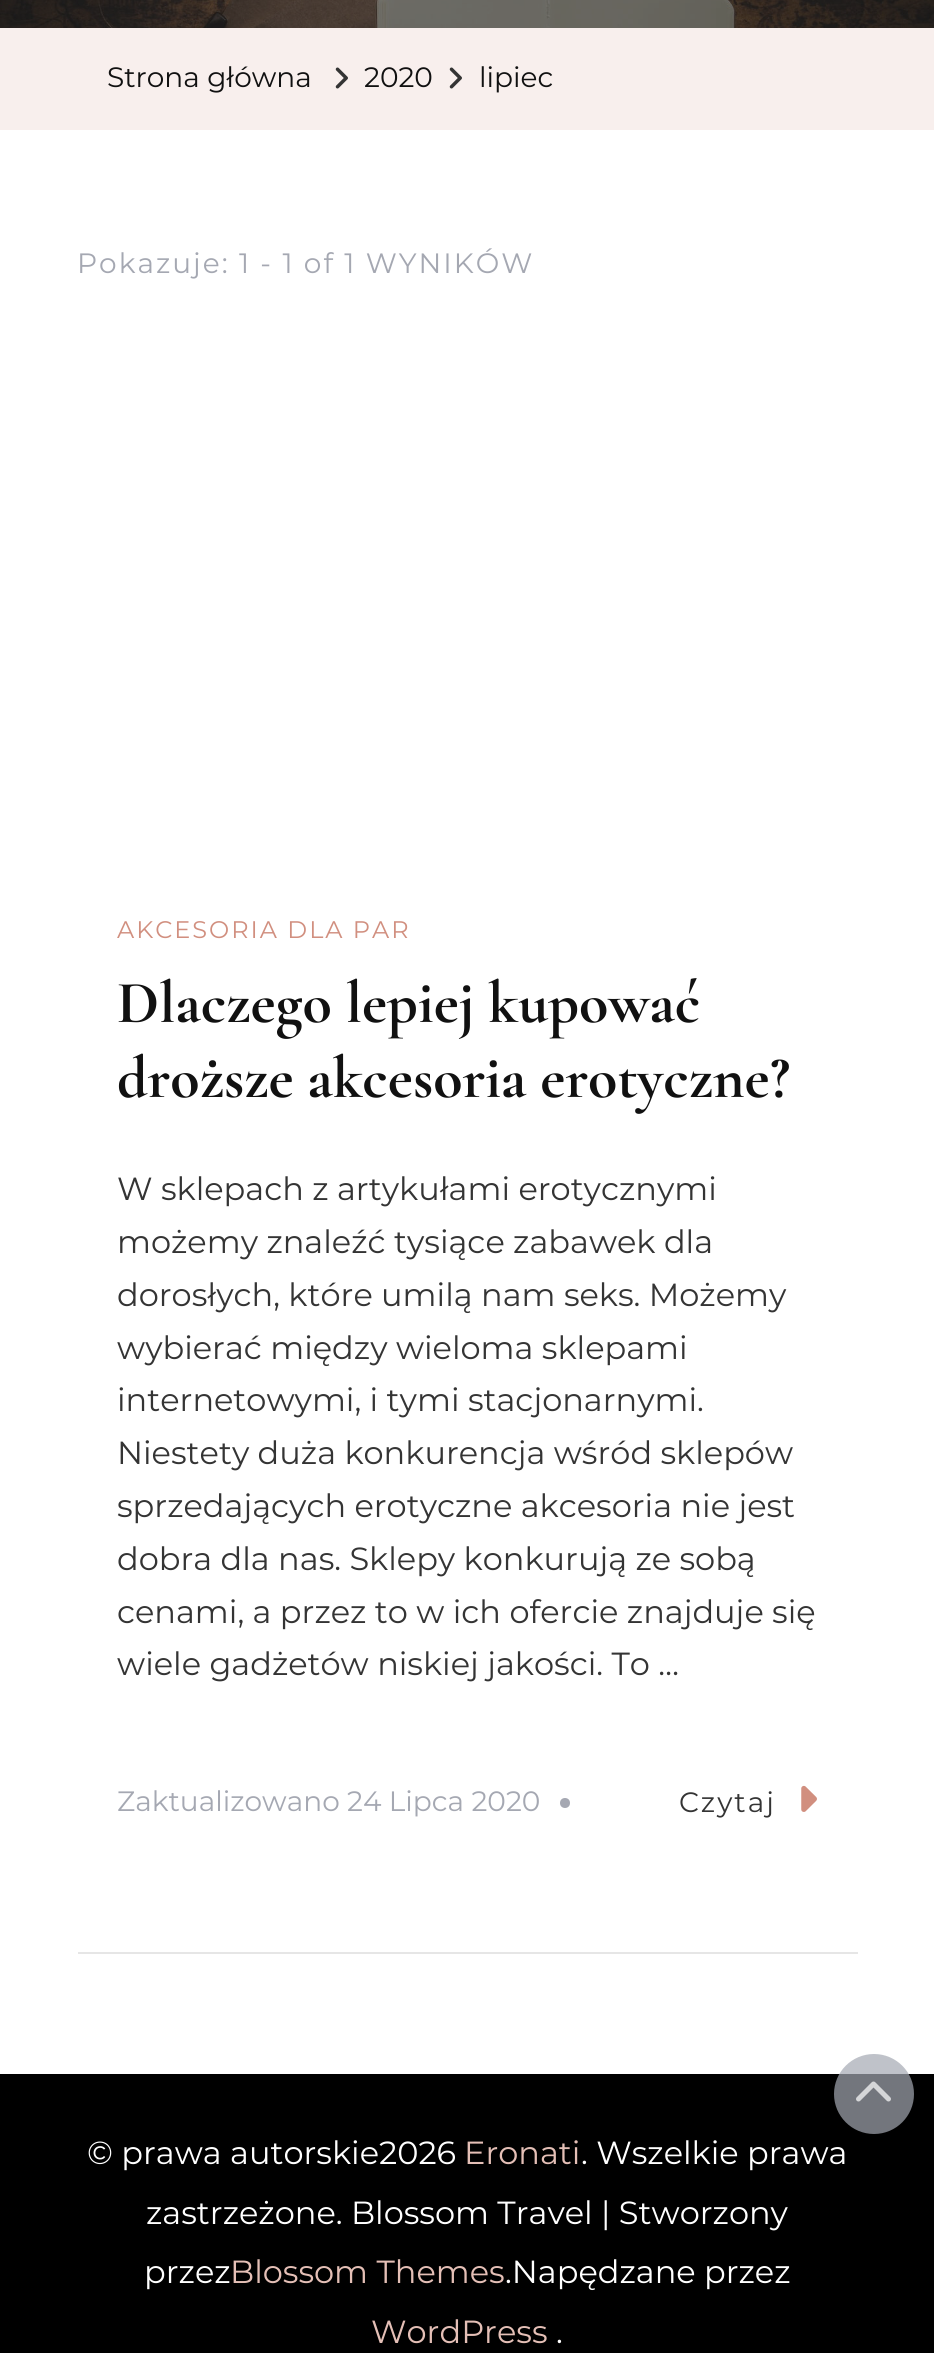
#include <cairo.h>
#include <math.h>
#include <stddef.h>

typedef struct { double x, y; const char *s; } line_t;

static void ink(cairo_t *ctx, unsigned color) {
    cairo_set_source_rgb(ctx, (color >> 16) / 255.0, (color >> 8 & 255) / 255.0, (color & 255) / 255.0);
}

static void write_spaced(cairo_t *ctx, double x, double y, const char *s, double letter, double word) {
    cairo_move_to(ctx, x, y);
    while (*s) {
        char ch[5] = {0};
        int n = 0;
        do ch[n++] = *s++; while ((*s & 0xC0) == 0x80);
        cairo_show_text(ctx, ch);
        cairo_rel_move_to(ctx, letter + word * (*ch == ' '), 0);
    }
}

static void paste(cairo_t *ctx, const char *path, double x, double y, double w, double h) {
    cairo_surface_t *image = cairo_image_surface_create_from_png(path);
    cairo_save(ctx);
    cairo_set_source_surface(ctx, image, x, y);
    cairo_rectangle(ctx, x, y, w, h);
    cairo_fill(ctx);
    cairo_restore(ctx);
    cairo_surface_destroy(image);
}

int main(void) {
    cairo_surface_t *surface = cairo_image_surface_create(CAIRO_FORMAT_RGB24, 934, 2353);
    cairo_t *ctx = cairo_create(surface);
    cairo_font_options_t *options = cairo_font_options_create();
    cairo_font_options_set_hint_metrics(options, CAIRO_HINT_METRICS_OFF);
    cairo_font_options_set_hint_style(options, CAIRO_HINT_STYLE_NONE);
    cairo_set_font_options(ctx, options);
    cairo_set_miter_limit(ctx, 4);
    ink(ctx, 0xFFFFFF);
    cairo_paint(ctx);
    paste(ctx, "media/1.png", 0, 0, 934, 28);
    ink(ctx, 0xF8EFED);
    cairo_rectangle(ctx, 0, 28, 934, 102);
    cairo_fill(ctx);
    cairo_select_font_face(ctx, "Montserrat", CAIRO_FONT_SLANT_NORMAL, CAIRO_FONT_WEIGHT_NORMAL);
    cairo_set_font_size(ctx, 28);
    ink(ctx, 0x111111);
    cairo_move_to(ctx, 107, 87);
    cairo_show_text(ctx, "Strona główna");
    paste(ctx, "media/2.png", 335, 67, 13, 22);
    cairo_move_to(ctx, 364, 87);
    cairo_show_text(ctx, "2020");
    paste(ctx, "media/2.png", 449, 67, 13, 22);
    cairo_move_to(ctx, 479, 87);
    cairo_show_text(ctx, "lipiec");
    ink(ctx, 0xA5A8B2);
    write_spaced(ctx, 77, 273, "Pokazuje: 1 - 1 of 1 WYNIKÓW", 2, 0);
    ink(ctx, 0xE6E6E6);
    cairo_rectangle(ctx, 78, 1952, 780, 2);
    cairo_fill(ctx);
    cairo_set_font_size(ctx, 24);
    ink(ctx, 0xD18F7F);
    write_spaced(ctx, 117, 938, "AKCESORIA DLA PAR", 2, 0);
    cairo_select_font_face(ctx, "Cormorant Garamond", CAIRO_FONT_SLANT_NORMAL, CAIRO_FONT_WEIGHT_BOLD);
    cairo_set_font_size(ctx, 60);
    ink(ctx, 0x111111);
    cairo_move_to(ctx, 117, 1022);
    cairo_show_text(ctx, "Dlaczego lepiej kupować");
    cairo_move_to(ctx, 117, 1097);
    cairo_show_text(ctx, "droższe akcesoria erotyczne?");
    cairo_select_font_face(ctx, "Montserrat", CAIRO_FONT_SLANT_NORMAL, CAIRO_FONT_WEIGHT_NORMAL);
    cairo_set_font_size(ctx, 32);
    ink(ctx, 0x343434);
    {
        static const line_t items[] = {
            {117, 1200, "W sklepach z artykułami erotycznymi"},
            {117, 1253, "możemy znaleźć tysiące zabawek dla"},
            {117, 1306, "dorosłych, które umilą nam seks. Możemy"},
            {117, 1359, "wybierać między wieloma sklepami"},
            {117, 1411, "internetowymi, i tymi stacjonarnymi."},
            {117, 1464, "Niestety duża konkurencja wśród sklepów"},
            {117, 1517, "sprzedających erotyczne akcesoria nie jest"},
            {117, 1570, "dobra dla nas. Sklepy konkurują ze sobą"},
            {117, 1623, "cenami, a przez to w ich ofercie znajduje się"},
            {117, 1675, "wiele gadżetów niskiej jakości. To …"},
        };
        for (size_t i = 0; i < sizeof items / sizeof *items; i++) {
            cairo_move_to(ctx, items[i].x, items[i].y);
            cairo_show_text(ctx, items[i].s);
        }
    }
    cairo_set_font_size(ctx, 28);
    ink(ctx, 0xA5A8B2);
    cairo_move_to(ctx, 117, 1811);
    cairo_show_text(ctx, "Zaktualizowano 24 Lipca 2020");
    cairo_new_path(ctx);
    cairo_arc(ctx, 565, 1803, 5, 0, 2 * M_PI);
    cairo_fill(ctx);
    ink(ctx, 0x343434);
    write_spaced(ctx, 679, 1812, "Czytaj", 2, 0);
    paste(ctx, "media/3.png", 801, 1785, 16, 27);
    ink(ctx, 0x000000);
    cairo_rectangle(ctx, 0, 2074, 934, 279);
    cairo_fill(ctx);
    cairo_set_source_rgba(ctx, 0.647, 0.659, 0.698, 0.7);
    cairo_arc(ctx, 874, 2094, 40, 0, 2 * M_PI);
    cairo_fill(ctx);
    paste(ctx, "media/4.png", 856, 2081, 35, 21);
    cairo_set_font_size(ctx, 32);
    ink(ctx, 0xFFFFFF);
    cairo_move_to(ctx, 87, 2164);
    cairo_show_text(ctx, "© prawa autorskie2026");
    ink(ctx, 0xE4BFB6);
    cairo_move_to(ctx, 464, 2164);
    cairo_show_text(ctx, "Eronati");
    ink(ctx, 0xFFFFFF);
    {
        static const line_t items[] = {
            {581, 2164, ". Wszelkie prawa"},
            {146, 2224, "zastrzeżone. Blossom Travel | Stworzony"},
            {144, 2283, "przez"},
        };
        for (size_t i = 0; i < sizeof items / sizeof *items; i++) {
            cairo_move_to(ctx, items[i].x, items[i].y);
            cairo_show_text(ctx, items[i].s);
        }
    }
    ink(ctx, 0xE4BFB6);
    cairo_move_to(ctx, 230, 2283);
    cairo_show_text(ctx, "Blossom Themes");
    ink(ctx, 0xFFFFFF);
    cairo_move_to(ctx, 505, 2283);
    cairo_show_text(ctx, ".Napędzane przez");
    ink(ctx, 0xE4BFB6);
    cairo_move_to(ctx, 371, 2343);
    cairo_show_text(ctx, "WordPress");
    ink(ctx, 0xFFFFFF);
    cairo_move_to(ctx, 556, 2343);
    cairo_show_text(ctx, ".");
    cairo_surface_write_to_png(surface, "image.png");
    cairo_font_options_destroy(options);
    cairo_destroy(ctx);
    cairo_surface_destroy(surface);
    return 0;
}
